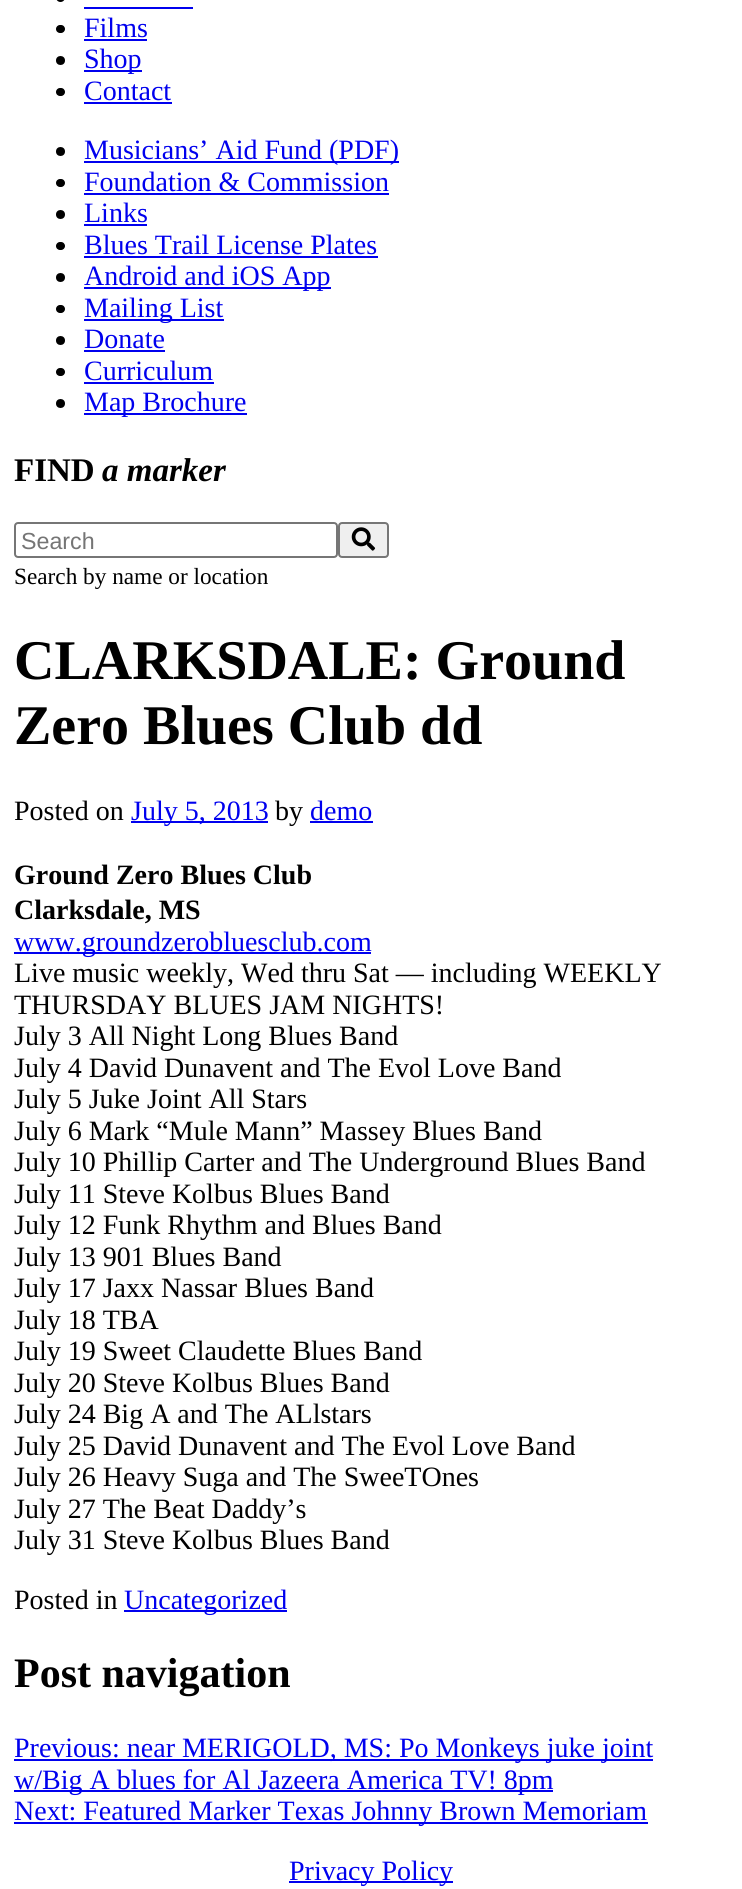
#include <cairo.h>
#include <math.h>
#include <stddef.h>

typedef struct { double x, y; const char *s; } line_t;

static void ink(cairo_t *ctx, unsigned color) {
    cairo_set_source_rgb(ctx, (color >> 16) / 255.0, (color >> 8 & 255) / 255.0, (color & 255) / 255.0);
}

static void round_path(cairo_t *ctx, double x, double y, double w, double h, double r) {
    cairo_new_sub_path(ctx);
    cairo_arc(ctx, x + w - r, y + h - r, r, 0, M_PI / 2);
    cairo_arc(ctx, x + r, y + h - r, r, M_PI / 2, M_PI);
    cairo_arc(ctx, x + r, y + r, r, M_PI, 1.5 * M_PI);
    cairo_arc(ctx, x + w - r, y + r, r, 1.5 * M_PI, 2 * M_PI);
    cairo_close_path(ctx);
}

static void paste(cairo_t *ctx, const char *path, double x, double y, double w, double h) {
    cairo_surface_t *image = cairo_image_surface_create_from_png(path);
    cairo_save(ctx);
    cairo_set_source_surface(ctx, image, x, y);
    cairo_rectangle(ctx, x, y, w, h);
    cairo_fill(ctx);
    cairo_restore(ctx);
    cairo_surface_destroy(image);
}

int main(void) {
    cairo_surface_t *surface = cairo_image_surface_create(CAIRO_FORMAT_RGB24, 742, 1889);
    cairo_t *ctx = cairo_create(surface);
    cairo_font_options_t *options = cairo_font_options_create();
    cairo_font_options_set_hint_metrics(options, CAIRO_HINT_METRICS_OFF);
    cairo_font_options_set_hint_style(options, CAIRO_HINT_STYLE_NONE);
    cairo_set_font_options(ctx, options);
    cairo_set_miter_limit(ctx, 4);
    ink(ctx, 0xFFFFFF);
    cairo_paint(ctx);
    ink(ctx, 0x000000);
    round_path(ctx, 56, -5, 9, 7, 4.5);
    cairo_fill(ctx);
    ink(ctx, 0x0000EE);
    cairo_rectangle(ctx, 84, 7, 109, 2);
    cairo_fill(ctx);
    ink(ctx, 0x000000);
    round_path(ctx, 56, 25, 9, 8, 4);
    cairo_fill(ctx);
    cairo_select_font_face(ctx, "Liberation Serif", CAIRO_FONT_SLANT_NORMAL, CAIRO_FONT_WEIGHT_NORMAL);
    cairo_set_font_size(ctx, 28);
    ink(ctx, 0x0000EE);
    cairo_move_to(ctx, 84, 37);
    cairo_show_text(ctx, "Films");
    cairo_rectangle(ctx, 84, 39, 63, 2);
    cairo_fill(ctx);
    ink(ctx, 0x000000);
    cairo_arc(ctx, 60.5, 60.5, 4.5, 0, 2 * M_PI);
    cairo_fill(ctx);
    ink(ctx, 0x0000EE);
    cairo_rectangle(ctx, 84, 70, 58, 2);
    cairo_fill(ctx);
    cairo_move_to(ctx, 84, 68);
    cairo_show_text(ctx, "Shop");
    ink(ctx, 0x000000);
    round_path(ctx, 56, 88, 9, 8, 4);
    cairo_fill(ctx);
    ink(ctx, 0x0000EE);
    cairo_move_to(ctx, 84, 100);
    cairo_show_text(ctx, "Contact");
    cairo_rectangle(ctx, 84, 102, 88, 2);
    cairo_fill(ctx);
    ink(ctx, 0x000000);
    cairo_arc(ctx, 60.5, 151.5, 4.5, 0, 2 * M_PI);
    cairo_fill(ctx);
    ink(ctx, 0x0000EE);
    cairo_rectangle(ctx, 84, 161, 315, 2);
    cairo_fill(ctx);
    cairo_move_to(ctx, 84, 159);
    cairo_show_text(ctx, "Musicians’ Aid Fund (PDF)");
    ink(ctx, 0x000000);
    round_path(ctx, 56, 179, 9, 8, 4);
    cairo_fill(ctx);
    ink(ctx, 0x0000EE);
    cairo_move_to(ctx, 84, 191);
    cairo_show_text(ctx, "Foundation & Commission");
    cairo_rectangle(ctx, 84, 193, 305, 2);
    cairo_fill(ctx);
    ink(ctx, 0x000000);
    cairo_arc(ctx, 60.5, 214.5, 4.5, 0, 2 * M_PI);
    cairo_fill(ctx);
    ink(ctx, 0x0000EE);
    cairo_move_to(ctx, 84, 222);
    cairo_show_text(ctx, "Links");
    cairo_rectangle(ctx, 84, 224, 63, 2);
    cairo_fill(ctx);
    ink(ctx, 0x000000);
    round_path(ctx, 56, 242, 9, 8, 4);
    cairo_fill(ctx);
    ink(ctx, 0x0000EE);
    cairo_move_to(ctx, 84, 254);
    cairo_show_text(ctx, "Blues Trail License Plates");
    cairo_rectangle(ctx, 84, 256, 294, 2);
    cairo_fill(ctx);
    ink(ctx, 0x000000);
    cairo_arc(ctx, 60.5, 277.5, 4.5, 0, 2 * M_PI);
    cairo_fill(ctx);
    ink(ctx, 0x0000EE);
    cairo_rectangle(ctx, 84, 287, 247, 2);
    cairo_fill(ctx);
    cairo_move_to(ctx, 84, 285);
    cairo_show_text(ctx, "Android and iOS App");
    ink(ctx, 0x000000);
    round_path(ctx, 56, 305, 9, 8, 4);
    cairo_fill(ctx);
    ink(ctx, 0x0000EE);
    cairo_rectangle(ctx, 84, 319, 140, 2);
    cairo_fill(ctx);
    cairo_move_to(ctx, 84, 317);
    cairo_show_text(ctx, "Mailing List");
    ink(ctx, 0x000000);
    cairo_new_path(ctx);
    cairo_arc(ctx, 60.5, 340.5, 4.5, 0, 2 * M_PI);
    cairo_fill(ctx);
    ink(ctx, 0x0000EE);
    cairo_move_to(ctx, 84, 348);
    cairo_show_text(ctx, "Donate");
    cairo_rectangle(ctx, 84, 350, 81, 2);
    cairo_fill(ctx);
    ink(ctx, 0x000000);
    round_path(ctx, 56, 368, 9, 8, 4);
    cairo_fill(ctx);
    ink(ctx, 0x0000EE);
    cairo_move_to(ctx, 84, 380);
    cairo_show_text(ctx, "Curriculum");
    cairo_rectangle(ctx, 84, 382, 130, 2);
    cairo_fill(ctx);
    ink(ctx, 0x000000);
    cairo_arc(ctx, 60.5, 403.5, 4.5, 0, 2 * M_PI);
    cairo_fill(ctx);
    ink(ctx, 0x0000EE);
    cairo_rectangle(ctx, 84, 413, 163, 2);
    cairo_fill(ctx);
    cairo_move_to(ctx, 84, 411);
    cairo_show_text(ctx, "Map Brochure");
    cairo_select_font_face(ctx, "Liberation Serif", CAIRO_FONT_SLANT_NORMAL, CAIRO_FONT_WEIGHT_BOLD);
    cairo_set_font_size(ctx, 33);
    ink(ctx, 0x000000);
    cairo_move_to(ctx, 14, 481);
    cairo_show_text(ctx, "FIND");
    cairo_select_font_face(ctx, "Liberation Serif", CAIRO_FONT_SLANT_ITALIC, CAIRO_FONT_WEIGHT_BOLD);
    cairo_move_to(ctx, 102, 481);
    cairo_show_text(ctx, "a marker");
    round_path(ctx, 15, 523, 322, 34, 3);
    ink(ctx, 0x767676);
    cairo_stroke(ctx);
    cairo_select_font_face(ctx, "Liberation Sans", CAIRO_FONT_SLANT_NORMAL, CAIRO_FONT_WEIGHT_NORMAL);
    cairo_set_font_size(ctx, 23.25);
    ink(ctx, 0x757575);
    cairo_move_to(ctx, 21, 549);
    cairo_show_text(ctx, "Search");
    ink(ctx, 0xEFEFEF);
    round_path(ctx, 339, 523, 49, 34, 3);
    cairo_fill_preserve(ctx);
    ink(ctx, 0x767676);
    cairo_stroke(ctx);
    paste(ctx, "media/1.png", 351, 527, 25, 24);
    cairo_select_font_face(ctx, "Liberation Serif", CAIRO_FONT_SLANT_NORMAL, CAIRO_FONT_WEIGHT_NORMAL);
    ink(ctx, 0x000000);
    cairo_move_to(ctx, 14, 584);
    cairo_show_text(ctx, "Search by name or location");
    cairo_select_font_face(ctx, "Liberation Serif", CAIRO_FONT_SLANT_NORMAL, CAIRO_FONT_WEIGHT_BOLD);
    cairo_set_font_size(ctx, 56);
    cairo_move_to(ctx, 14, 679);
    cairo_show_text(ctx, "CLARKSDALE: Ground");
    cairo_move_to(ctx, 14, 744);
    cairo_show_text(ctx, "Zero Blues Club dd");
    cairo_select_font_face(ctx, "Liberation Serif", CAIRO_FONT_SLANT_NORMAL, CAIRO_FONT_WEIGHT_NORMAL);
    cairo_set_font_size(ctx, 28);
    cairo_move_to(ctx, 14, 820);
    cairo_show_text(ctx, "Posted on");
    ink(ctx, 0x0000EE);
    cairo_rectangle(ctx, 131, 821, 137, 2);
    cairo_fill(ctx);
    cairo_move_to(ctx, 131, 820);
    cairo_show_text(ctx, "July 5, 2013");
    ink(ctx, 0x000000);
    cairo_move_to(ctx, 275, 820);
    cairo_show_text(ctx, "by");
    ink(ctx, 0x0000EE);
    cairo_rectangle(ctx, 310, 821, 63, 2);
    cairo_fill(ctx);
    cairo_move_to(ctx, 310, 820);
    cairo_show_text(ctx, "demo");
    cairo_select_font_face(ctx, "Liberation Serif", CAIRO_FONT_SLANT_NORMAL, CAIRO_FONT_WEIGHT_BOLD);
    ink(ctx, 0x000000);
    cairo_move_to(ctx, 14, 884);
    cairo_show_text(ctx, "Ground Zero Blues Club");
    cairo_move_to(ctx, 14, 919);
    cairo_show_text(ctx, "Clarksdale, MS");
    ink(ctx, 0x0000EE);
    cairo_rectangle(ctx, 14, 952, 357, 2);
    cairo_fill(ctx);
    cairo_select_font_face(ctx, "Liberation Serif", CAIRO_FONT_SLANT_NORMAL, CAIRO_FONT_WEIGHT_NORMAL);
    cairo_move_to(ctx, 14, 951);
    cairo_show_text(ctx, "www.groundzerobluesclub.com");
    ink(ctx, 0x000000);
    {
        static const line_t items[] = {
            {14, 982, "Live music weekly, Wed thru Sat — including WEEKLY"},
            {14, 1014, "THURSDAY BLUES JAM NIGHTS!"},
            {14, 1045, "July 3 All Night Long Blues Band"},
            {14, 1077, "July 4 David Dunavent and The Evol Love Band"},
            {14, 1108, "July 5 Juke Joint All Stars"},
            {14, 1140, "July 6 Mark “Mule Mann” Massey Blues Band"},
            {14, 1171, "July 10 Phillip Carter and The Underground Blues Band"},
            {14, 1203, "July 11 Steve Kolbus Blues Band"},
            {14, 1234, "July 12 Funk Rhythm and Blues Band"},
            {14, 1266, "July 13 901 Blues Band"},
            {14, 1297, "July 17 Jaxx Nassar Blues Band"},
            {14, 1329, "July 18 TBA"},
            {14, 1360, "July 19 Sweet Claudette Blues Band"},
            {14, 1392, "July 20 Steve Kolbus Blues Band"},
            {14, 1423, "July 24 Big A and The ALlstars"},
            {14, 1455, "July 25 David Dunavent and The Evol Love Band"},
            {14, 1486, "July 26 Heavy Suga and The SweeTOnes"},
            {14, 1518, "July 27 The Beat Daddy’s"},
            {14, 1549, "July 31 Steve Kolbus Blues Band"},
            {14, 1609, "Posted in"},
        };
        for (size_t i = 0; i < sizeof items / sizeof *items; i++) {
            cairo_move_to(ctx, items[i].x, items[i].y);
            cairo_show_text(ctx, items[i].s);
        }
    }
    ink(ctx, 0x0000EE);
    cairo_rectangle(ctx, 124, 1610, 163, 2);
    cairo_fill(ctx);
    cairo_move_to(ctx, 124, 1609);
    cairo_show_text(ctx, "Uncategorized");
    cairo_select_font_face(ctx, "Liberation Serif", CAIRO_FONT_SLANT_NORMAL, CAIRO_FONT_WEIGHT_BOLD);
    cairo_set_font_size(ctx, 42);
    ink(ctx, 0x000000);
    cairo_move_to(ctx, 14, 1687);
    cairo_show_text(ctx, "Post navigation");
    ink(ctx, 0x0000EE);
    cairo_rectangle(ctx, 14, 1759, 639, 2);
    cairo_fill(ctx);
    cairo_select_font_face(ctx, "Liberation Serif", CAIRO_FONT_SLANT_NORMAL, CAIRO_FONT_WEIGHT_NORMAL);
    cairo_set_font_size(ctx, 28);
    cairo_move_to(ctx, 14, 1757);
    cairo_show_text(ctx, "Previous: near MERIGOLD, MS: Po Monkeys juke joint");
    cairo_rectangle(ctx, 14, 1790, 539, 2);
    cairo_fill(ctx);
    cairo_move_to(ctx, 14, 1789);
    cairo_show_text(ctx, "w/Big A blues for Al Jazeera America TV! 8pm");
    cairo_rectangle(ctx, 14, 1822, 634, 2);
    cairo_fill(ctx);
    cairo_move_to(ctx, 14, 1820);
    cairo_show_text(ctx, "Next: Featured Marker Texas Johnny Brown Memoriam");
    cairo_rectangle(ctx, 289, 1881, 164, 2);
    cairo_fill(ctx);
    cairo_move_to(ctx, 289, 1880);
    cairo_show_text(ctx, "Privacy Policy");
    cairo_surface_write_to_png(surface, "image.png");
    cairo_font_options_destroy(options);
    cairo_destroy(ctx);
    cairo_surface_destroy(surface);
    return 0;
}
